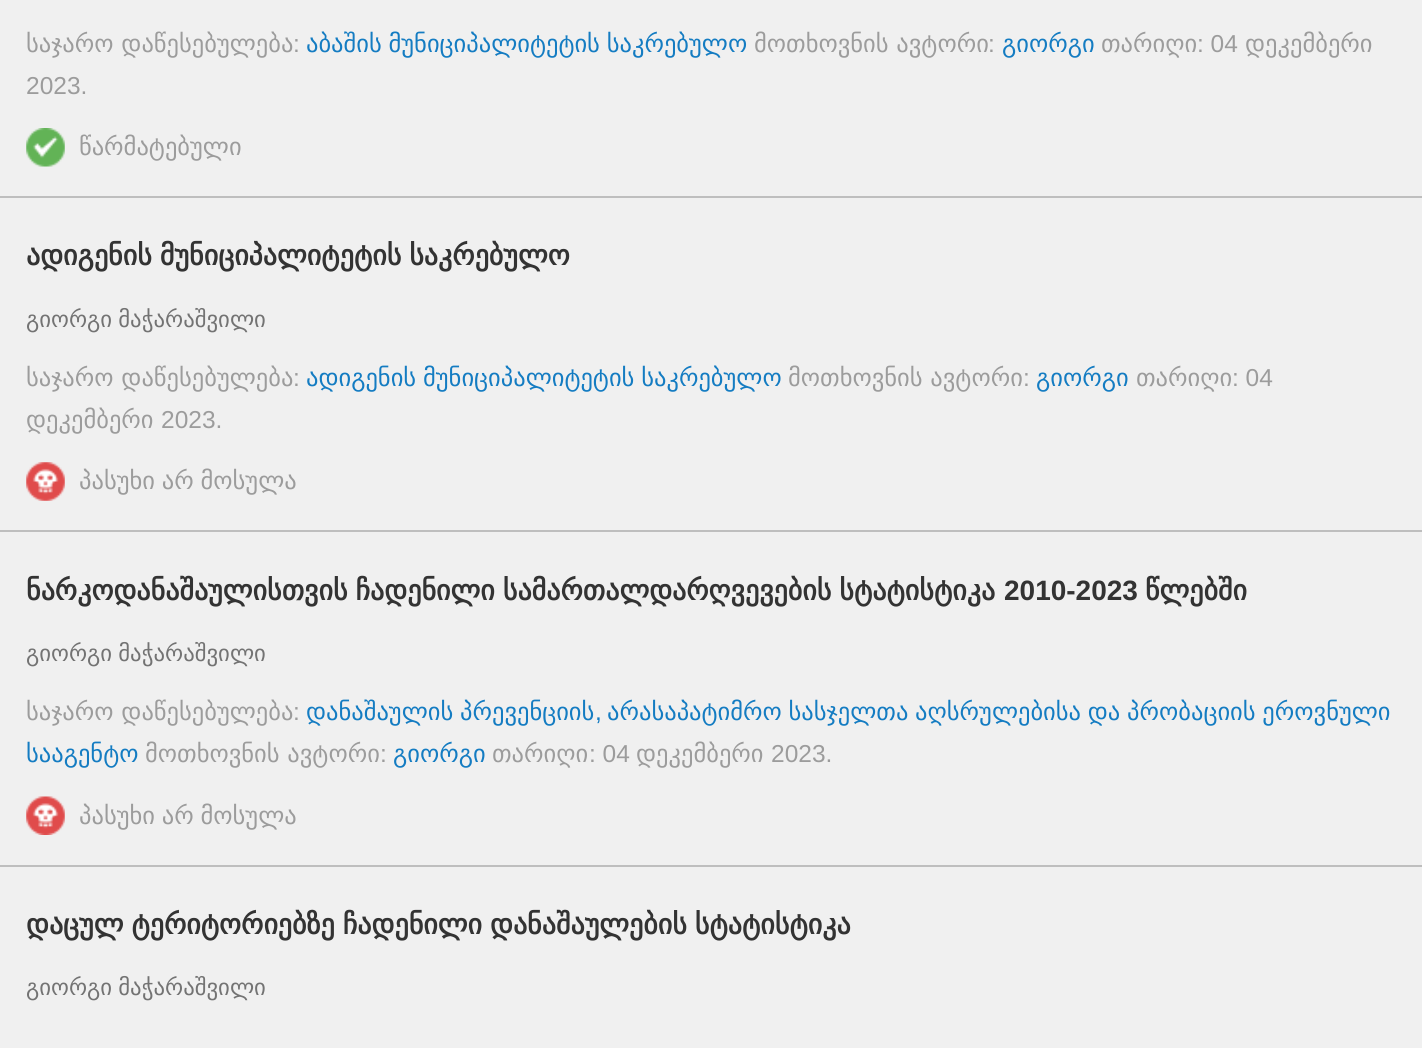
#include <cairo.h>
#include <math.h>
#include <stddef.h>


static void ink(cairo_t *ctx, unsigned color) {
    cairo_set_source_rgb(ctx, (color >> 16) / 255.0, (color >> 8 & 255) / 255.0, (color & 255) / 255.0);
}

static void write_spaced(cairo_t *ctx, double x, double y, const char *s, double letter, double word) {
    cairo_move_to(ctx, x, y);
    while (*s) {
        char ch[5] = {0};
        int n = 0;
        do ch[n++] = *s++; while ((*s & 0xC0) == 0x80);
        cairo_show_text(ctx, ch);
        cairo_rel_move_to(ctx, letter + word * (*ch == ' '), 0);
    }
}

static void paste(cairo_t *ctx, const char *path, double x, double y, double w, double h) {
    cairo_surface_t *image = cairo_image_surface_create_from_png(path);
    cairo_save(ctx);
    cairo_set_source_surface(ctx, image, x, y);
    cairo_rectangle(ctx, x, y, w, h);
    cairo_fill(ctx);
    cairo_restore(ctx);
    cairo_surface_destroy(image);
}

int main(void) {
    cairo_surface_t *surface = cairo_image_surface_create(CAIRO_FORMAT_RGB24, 1422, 1048);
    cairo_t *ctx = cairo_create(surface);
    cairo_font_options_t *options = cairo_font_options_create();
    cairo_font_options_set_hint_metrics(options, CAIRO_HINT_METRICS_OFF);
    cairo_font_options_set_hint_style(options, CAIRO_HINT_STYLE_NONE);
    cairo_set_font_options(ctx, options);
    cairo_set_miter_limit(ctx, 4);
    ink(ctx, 0xF0F0F0);
    cairo_paint(ctx);
    ink(ctx, 0xBEBEBE);
    cairo_rectangle(ctx, 0, 196, 1422, 2);
    cairo_fill(ctx);
    cairo_select_font_face(ctx, "DejaVu Sans", CAIRO_FONT_SLANT_NORMAL, CAIRO_FONT_WEIGHT_NORMAL);
    cairo_set_font_size(ctx, 24.5);
    ink(ctx, 0x9C9C9C);
    cairo_move_to(ctx, 26, 52);
    cairo_show_text(ctx, "საჯარო დაწესებულება");
    cairo_select_font_face(ctx, "Liberation Sans", CAIRO_FONT_SLANT_NORMAL, CAIRO_FONT_WEIGHT_NORMAL);
    cairo_move_to(ctx, 293, 52);
    cairo_show_text(ctx, ":");
    cairo_select_font_face(ctx, "DejaVu Sans", CAIRO_FONT_SLANT_NORMAL, CAIRO_FONT_WEIGHT_NORMAL);
    ink(ctx, 0x147CC2);
    write_spaced(ctx, 306, 52, "აბაშის მუნიციპალიტეტის საკრებულო", 0, -1);
    ink(ctx, 0x9C9C9C);
    cairo_move_to(ctx, 754, 52);
    cairo_show_text(ctx, "მოთხოვნის ავტორი");
    cairo_select_font_face(ctx, "Liberation Sans", CAIRO_FONT_SLANT_NORMAL, CAIRO_FONT_WEIGHT_NORMAL);
    cairo_move_to(ctx, 988, 52);
    cairo_show_text(ctx, ":");
    cairo_select_font_face(ctx, "DejaVu Sans", CAIRO_FONT_SLANT_NORMAL, CAIRO_FONT_WEIGHT_NORMAL);
    ink(ctx, 0x147CC2);
    cairo_move_to(ctx, 1002, 52);
    cairo_show_text(ctx, "გიორგი");
    ink(ctx, 0x9C9C9C);
    cairo_move_to(ctx, 1101, 52);
    cairo_show_text(ctx, "თარიღი");
    cairo_select_font_face(ctx, "Liberation Sans", CAIRO_FONT_SLANT_NORMAL, CAIRO_FONT_WEIGHT_NORMAL);
    cairo_move_to(ctx, 1197, 52);
    cairo_show_text(ctx, ": 04");
    cairo_select_font_face(ctx, "DejaVu Sans", CAIRO_FONT_SLANT_NORMAL, CAIRO_FONT_WEIGHT_NORMAL);
    cairo_move_to(ctx, 1245, 52);
    cairo_show_text(ctx, "დეკემბერი");
    cairo_select_font_face(ctx, "Liberation Sans", CAIRO_FONT_SLANT_NORMAL, CAIRO_FONT_WEIGHT_NORMAL);
    cairo_move_to(ctx, 26, 94);
    cairo_show_text(ctx, "2023.");
    paste(ctx, "media/1.png", 26, 128, 39, 39);
    cairo_select_font_face(ctx, "DejaVu Sans", CAIRO_FONT_SLANT_NORMAL, CAIRO_FONT_WEIGHT_NORMAL);
    cairo_move_to(ctx, 79, 155);
    cairo_show_text(ctx, "წარმატებული");
    ink(ctx, 0xBEBEBE);
    cairo_rectangle(ctx, 0, 530, 1422, 2);
    cairo_fill(ctx);
    cairo_select_font_face(ctx, "DejaVu Sans", CAIRO_FONT_SLANT_NORMAL, CAIRO_FONT_WEIGHT_BOLD);
    cairo_set_font_size(ctx, 28);
    ink(ctx, 0x333333);
    write_spaced(ctx, 26, 265, "ადიგენის მუნიციპალიტეტის საკრებულო", 0, -1);
    cairo_select_font_face(ctx, "DejaVu Sans", CAIRO_FONT_SLANT_NORMAL, CAIRO_FONT_WEIGHT_NORMAL);
    cairo_set_font_size(ctx, 22.75);
    ink(ctx, 0x737373);
    write_spaced(ctx, 26, 327, "გიორგი მაჭარაშვილი", 0, -1);
    cairo_set_font_size(ctx, 24.5);
    ink(ctx, 0x9C9C9C);
    cairo_move_to(ctx, 26, 386);
    cairo_show_text(ctx, "საჯარო დაწესებულება");
    cairo_select_font_face(ctx, "Liberation Sans", CAIRO_FONT_SLANT_NORMAL, CAIRO_FONT_WEIGHT_NORMAL);
    cairo_move_to(ctx, 293, 386);
    cairo_show_text(ctx, ":");
    cairo_select_font_face(ctx, "DejaVu Sans", CAIRO_FONT_SLANT_NORMAL, CAIRO_FONT_WEIGHT_NORMAL);
    ink(ctx, 0x147CC2);
    cairo_move_to(ctx, 306, 386);
    cairo_show_text(ctx, "ადიგენის");
    write_spaced(ctx, 423, 386, "მუნიციპალიტეტის საკრებულო", 0, -1);
    ink(ctx, 0x9C9C9C);
    cairo_move_to(ctx, 788, 386);
    cairo_show_text(ctx, "მოთხოვნის ავტორი");
    cairo_select_font_face(ctx, "Liberation Sans", CAIRO_FONT_SLANT_NORMAL, CAIRO_FONT_WEIGHT_NORMAL);
    cairo_move_to(ctx, 1023, 386);
    cairo_show_text(ctx, ":");
    cairo_select_font_face(ctx, "DejaVu Sans", CAIRO_FONT_SLANT_NORMAL, CAIRO_FONT_WEIGHT_NORMAL);
    ink(ctx, 0x147CC2);
    cairo_move_to(ctx, 1036, 386);
    cairo_show_text(ctx, "გიორგი");
    ink(ctx, 0x9C9C9C);
    cairo_move_to(ctx, 1136, 386);
    cairo_show_text(ctx, "თარიღი");
    cairo_select_font_face(ctx, "Liberation Sans", CAIRO_FONT_SLANT_NORMAL, CAIRO_FONT_WEIGHT_NORMAL);
    cairo_move_to(ctx, 1232, 386);
    cairo_show_text(ctx, ": 04");
    cairo_select_font_face(ctx, "DejaVu Sans", CAIRO_FONT_SLANT_NORMAL, CAIRO_FONT_WEIGHT_NORMAL);
    cairo_move_to(ctx, 26, 428);
    cairo_show_text(ctx, "დეკემბერი");
    cairo_select_font_face(ctx, "Liberation Sans", CAIRO_FONT_SLANT_NORMAL, CAIRO_FONT_WEIGHT_NORMAL);
    cairo_move_to(ctx, 161, 428);
    cairo_show_text(ctx, "2023.");
    paste(ctx, "media/2.png", 26, 462, 39, 39);
    cairo_select_font_face(ctx, "DejaVu Sans", CAIRO_FONT_SLANT_NORMAL, CAIRO_FONT_WEIGHT_NORMAL);
    write_spaced(ctx, 79, 489, "პასუხი არ მოსულა", 0, -1);
    ink(ctx, 0xBEBEBE);
    cairo_rectangle(ctx, 0, 865, 1422, 2);
    cairo_fill(ctx);
    cairo_select_font_face(ctx, "DejaVu Sans", CAIRO_FONT_SLANT_NORMAL, CAIRO_FONT_WEIGHT_BOLD);
    cairo_set_font_size(ctx, 28);
    ink(ctx, 0x333333);
    write_spaced(ctx, 26, 600, "ნარკოდანაშაულისთვის ჩადენილი სამართალდარღვევების სტატისტიკა", 0, -1);
    cairo_select_font_face(ctx, "Liberation Sans", CAIRO_FONT_SLANT_NORMAL, CAIRO_FONT_WEIGHT_BOLD);
    cairo_move_to(ctx, 1004, 600);
    cairo_show_text(ctx, "2010-2023");
    cairo_select_font_face(ctx, "DejaVu Sans", CAIRO_FONT_SLANT_NORMAL, CAIRO_FONT_WEIGHT_BOLD);
    cairo_move_to(ctx, 1145, 600);
    cairo_show_text(ctx, "წლებში");
    cairo_select_font_face(ctx, "DejaVu Sans", CAIRO_FONT_SLANT_NORMAL, CAIRO_FONT_WEIGHT_NORMAL);
    cairo_set_font_size(ctx, 22.75);
    ink(ctx, 0x737373);
    write_spaced(ctx, 26, 661, "გიორგი მაჭარაშვილი", 0, -1);
    cairo_set_font_size(ctx, 24.5);
    ink(ctx, 0x9C9C9C);
    cairo_move_to(ctx, 26, 720);
    cairo_show_text(ctx, "საჯარო დაწესებულება");
    cairo_select_font_face(ctx, "Liberation Sans", CAIRO_FONT_SLANT_NORMAL, CAIRO_FONT_WEIGHT_NORMAL);
    cairo_move_to(ctx, 293, 720);
    cairo_show_text(ctx, ":");
    cairo_select_font_face(ctx, "DejaVu Sans", CAIRO_FONT_SLANT_NORMAL, CAIRO_FONT_WEIGHT_NORMAL);
    ink(ctx, 0x147CC2);
    write_spaced(ctx, 306, 720, "დანაშაულის პრევენციის", 0, -1);
    cairo_select_font_face(ctx, "Liberation Sans", CAIRO_FONT_SLANT_NORMAL, CAIRO_FONT_WEIGHT_NORMAL);
    cairo_move_to(ctx, 595, 720);
    cairo_show_text(ctx, ",");
    cairo_select_font_face(ctx, "DejaVu Sans", CAIRO_FONT_SLANT_NORMAL, CAIRO_FONT_WEIGHT_NORMAL);
    write_spaced(ctx, 607, 720, "არასაპატიმრო სასჯელთა აღსრულებისა და პრობაციის ეროვნული", 0, -1);
    cairo_move_to(ctx, 26, 762);
    cairo_show_text(ctx, "სააგენტო");
    ink(ctx, 0x9C9C9C);
    cairo_move_to(ctx, 145, 762);
    cairo_show_text(ctx, "მოთხოვნის ავტორი");
    cairo_select_font_face(ctx, "Liberation Sans", CAIRO_FONT_SLANT_NORMAL, CAIRO_FONT_WEIGHT_NORMAL);
    cairo_move_to(ctx, 380, 762);
    cairo_show_text(ctx, ":");
    cairo_select_font_face(ctx, "DejaVu Sans", CAIRO_FONT_SLANT_NORMAL, CAIRO_FONT_WEIGHT_NORMAL);
    ink(ctx, 0x147CC2);
    cairo_move_to(ctx, 393, 762);
    cairo_show_text(ctx, "გიორგი");
    ink(ctx, 0x9C9C9C);
    cairo_move_to(ctx, 492, 762);
    cairo_show_text(ctx, "თარიღი");
    cairo_select_font_face(ctx, "Liberation Sans", CAIRO_FONT_SLANT_NORMAL, CAIRO_FONT_WEIGHT_NORMAL);
    cairo_move_to(ctx, 589, 762);
    cairo_show_text(ctx, ": 04");
    cairo_select_font_face(ctx, "DejaVu Sans", CAIRO_FONT_SLANT_NORMAL, CAIRO_FONT_WEIGHT_NORMAL);
    cairo_move_to(ctx, 636, 762);
    cairo_show_text(ctx, "დეკემბერი");
    cairo_select_font_face(ctx, "Liberation Sans", CAIRO_FONT_SLANT_NORMAL, CAIRO_FONT_WEIGHT_NORMAL);
    cairo_move_to(ctx, 771, 762);
    cairo_show_text(ctx, "2023.");
    paste(ctx, "media/3.png", 26, 796, 39, 39);
    cairo_select_font_face(ctx, "DejaVu Sans", CAIRO_FONT_SLANT_NORMAL, CAIRO_FONT_WEIGHT_NORMAL);
    write_spaced(ctx, 79, 824, "პასუხი არ მოსულა", 0, -1);
    cairo_select_font_face(ctx, "DejaVu Sans", CAIRO_FONT_SLANT_NORMAL, CAIRO_FONT_WEIGHT_BOLD);
    cairo_set_font_size(ctx, 28);
    ink(ctx, 0x333333);
    write_spaced(ctx, 26, 934, "დაცულ ტერიტორიებზე ჩადენილი დანაშაულების სტატისტიკა", 0, -1);
    cairo_select_font_face(ctx, "DejaVu Sans", CAIRO_FONT_SLANT_NORMAL, CAIRO_FONT_WEIGHT_NORMAL);
    cairo_set_font_size(ctx, 22.75);
    ink(ctx, 0x737373);
    write_spaced(ctx, 26, 995, "გიორგი მაჭარაშვილი", 0, -1);
    cairo_surface_write_to_png(surface, "image.png");
    cairo_font_options_destroy(options);
    cairo_destroy(ctx);
    cairo_surface_destroy(surface);
    return 0;
}
